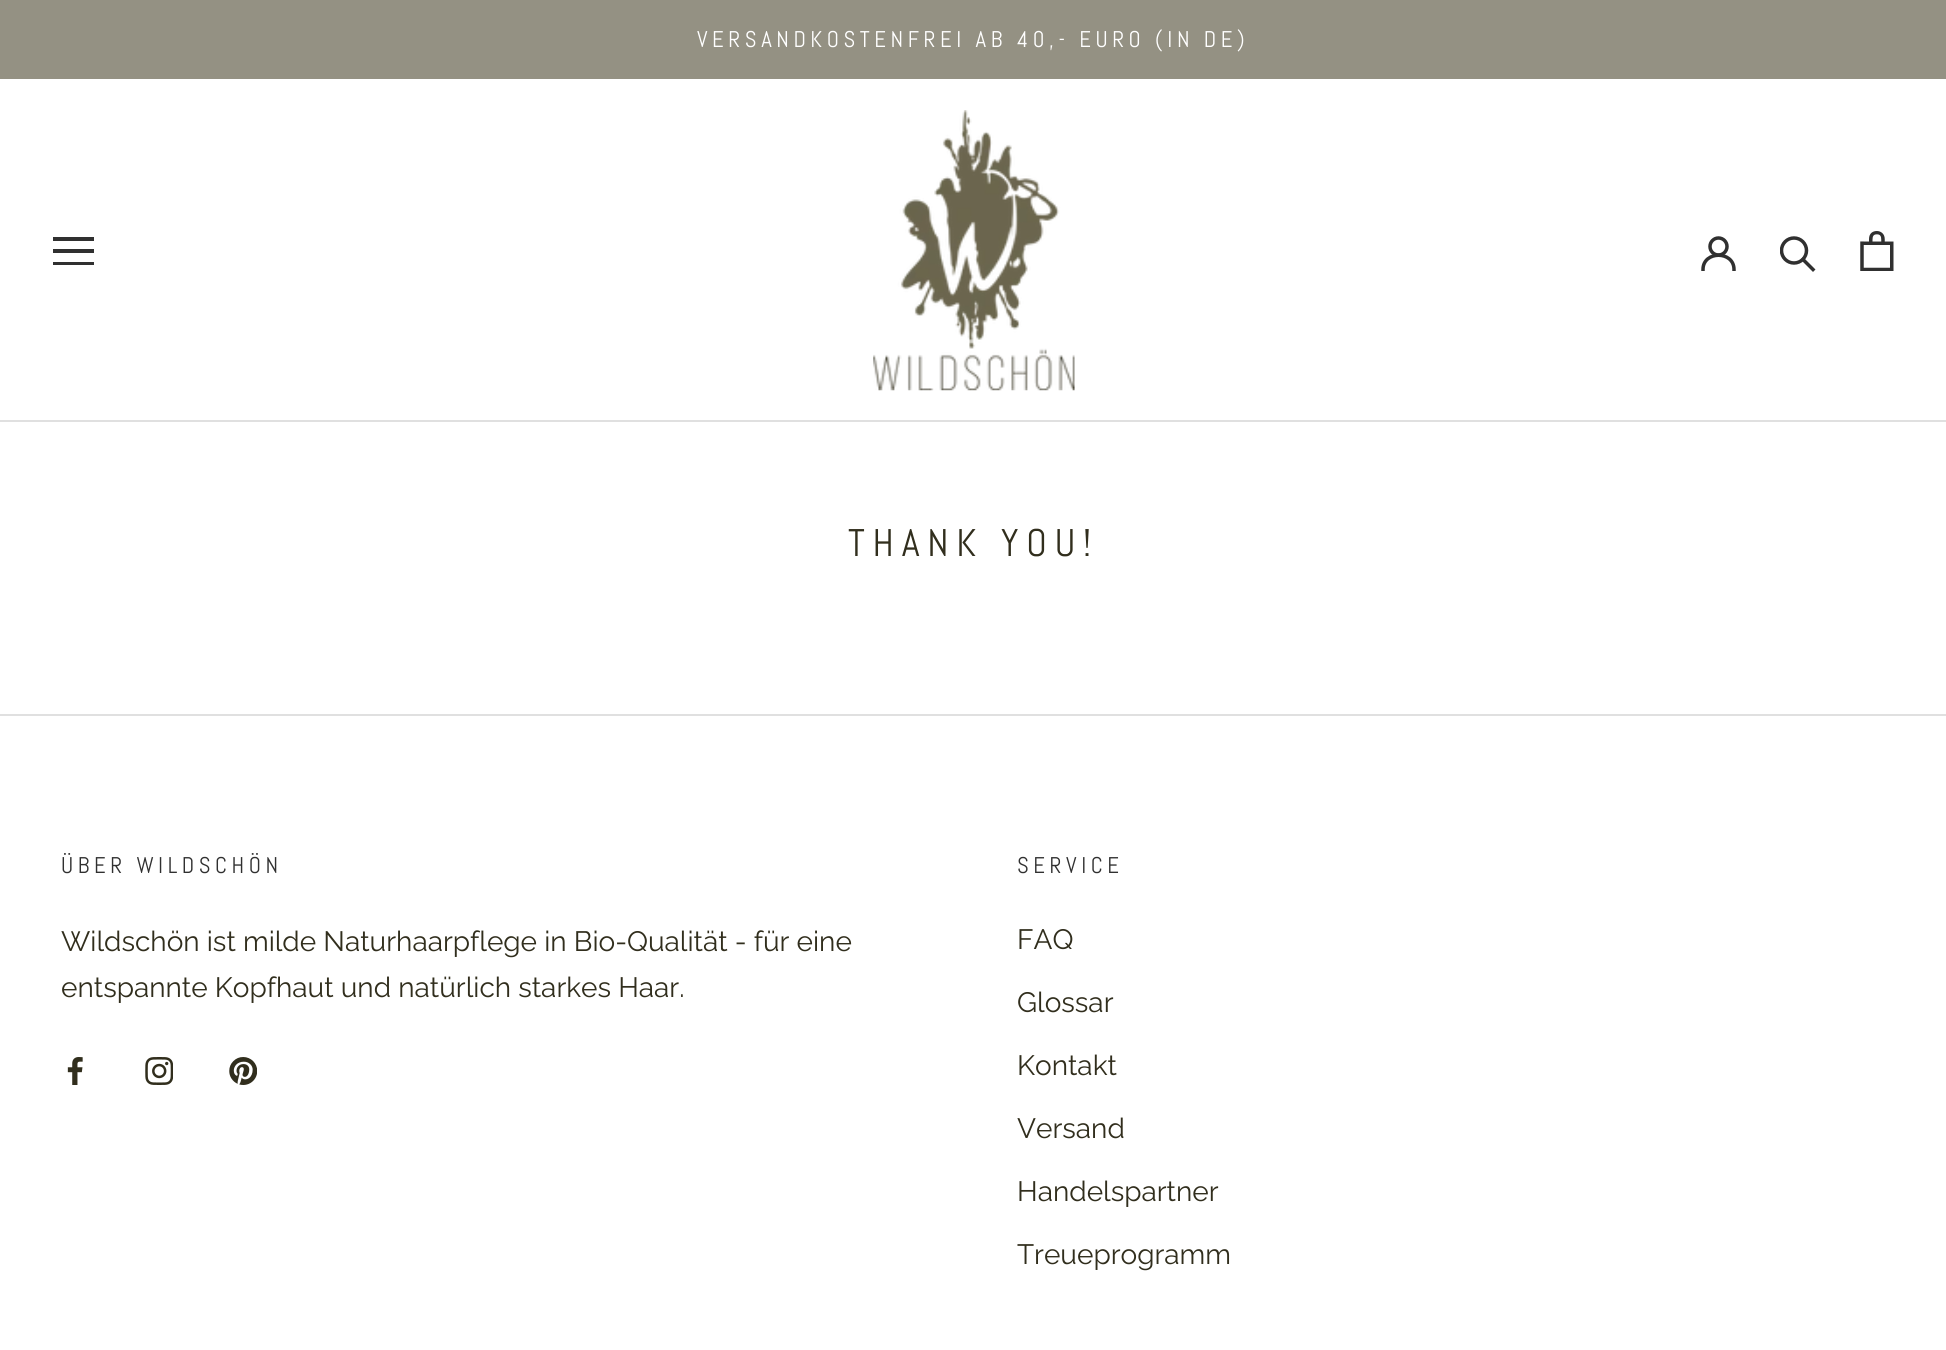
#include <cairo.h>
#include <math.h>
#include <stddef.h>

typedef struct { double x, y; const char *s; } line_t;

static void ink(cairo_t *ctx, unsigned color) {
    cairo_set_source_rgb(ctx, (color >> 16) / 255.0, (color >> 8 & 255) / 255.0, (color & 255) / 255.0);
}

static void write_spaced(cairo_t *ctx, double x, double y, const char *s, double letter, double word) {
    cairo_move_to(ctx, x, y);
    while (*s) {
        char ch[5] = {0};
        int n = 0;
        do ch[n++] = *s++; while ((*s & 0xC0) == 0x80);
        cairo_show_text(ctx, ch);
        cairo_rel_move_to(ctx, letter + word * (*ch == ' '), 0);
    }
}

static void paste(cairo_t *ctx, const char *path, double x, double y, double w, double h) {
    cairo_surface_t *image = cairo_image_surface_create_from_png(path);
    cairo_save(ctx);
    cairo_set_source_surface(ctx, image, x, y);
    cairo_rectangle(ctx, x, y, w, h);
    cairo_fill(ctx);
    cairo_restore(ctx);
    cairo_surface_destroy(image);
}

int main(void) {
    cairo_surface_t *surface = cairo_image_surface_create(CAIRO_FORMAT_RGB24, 1946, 1350);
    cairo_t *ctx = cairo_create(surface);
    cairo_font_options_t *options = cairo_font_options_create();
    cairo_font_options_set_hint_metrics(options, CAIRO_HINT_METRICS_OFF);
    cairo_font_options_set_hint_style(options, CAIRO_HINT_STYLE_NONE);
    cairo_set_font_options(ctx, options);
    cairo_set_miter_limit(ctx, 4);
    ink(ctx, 0xFFFFFF);
    cairo_paint(ctx);
    ink(ctx, 0x949183);
    cairo_rectangle(ctx, 0, 0, 1946, 79);
    cairo_fill(ctx);
    cairo_select_font_face(ctx, "Abel", CAIRO_FONT_SLANT_NORMAL, CAIRO_FONT_WEIGHT_NORMAL);
    cairo_set_font_size(ctx, 22.75);
    ink(ctx, 0xFFFFFF);
    write_spaced(ctx, 697, 47, "VERSANDKOSTENFREI AB 40,- EURO (IN DE)", 4.55, 0);
    ink(ctx, 0xE0E0E0);
    cairo_rectangle(ctx, 0, 420, 1946, 2);
    cairo_fill(ctx);
    cairo_save(ctx);
    cairo_rectangle(ctx, 53, 236, 42, 30);
    cairo_clip(ctx);
    ink(ctx, 0x303030);
    cairo_new_path(ctx);
    cairo_move_to(ctx, 52, 265);
    cairo_line_to(ctx, 52, 262);
    cairo_line_to(ctx, 94, 262);
    cairo_line_to(ctx, 94, 265);
    cairo_close_path(ctx);
    cairo_move_to(ctx, 52, 249);
    cairo_line_to(ctx, 94, 249);
    cairo_line_to(ctx, 94, 253);
    cairo_line_to(ctx, 52, 253);
    cairo_close_path(ctx);
    cairo_move_to(ctx, 52, 237);
    cairo_line_to(ctx, 94, 237);
    cairo_line_to(ctx, 94, 241);
    cairo_line_to(ctx, 52, 241);
    cairo_close_path(ctx);
    cairo_fill(ctx);
    cairo_restore(ctx);
    paste(ctx, "media/1.png", 873, 110, 202, 281);
    cairo_save(ctx);
    cairo_rectangle(ctx, 1701, 236, 35, 35);
    cairo_clip(ctx);
    cairo_new_path(ctx);
    cairo_move_to(ctx, 1703, 269.5);
    cairo_curve_to(ctx, 1703, 250.5, 1734, 250.5, 1734, 269.5);
    ink(ctx, 0x303030);
    cairo_set_line_width(ctx, 3.5);
    cairo_set_line_cap(ctx, CAIRO_LINE_CAP_SQUARE);
    cairo_stroke(ctx);
    cairo_restore(ctx);
    cairo_arc(ctx, 1718.5, 246.5, 8.5, 0, 2 * M_PI);
    ink(ctx, 0x303030);
    cairo_set_line_width(ctx, 3.5);
    cairo_stroke(ctx);
    cairo_new_path(ctx);
    cairo_move_to(ctx, 1813, 269.5);
    cairo_line_to(ctx, 1803, 259.5);
    cairo_set_line_cap(ctx, CAIRO_LINE_CAP_SQUARE);
    cairo_stroke(ctx);
    cairo_save(ctx);
    cairo_rectangle(ctx, 1780, 236, 37, 37);
    cairo_clip(ctx);
    cairo_arc(ctx, 1794, 250.5, 12.5, 0, 2 * M_PI);
    cairo_set_line_cap(ctx, CAIRO_LINE_CAP_BUTT);
    cairo_stroke(ctx);
    cairo_restore(ctx);
    paste(ctx, "media/2.png", 1860, 231, 34, 40);
    cairo_set_font_size(ctx, 38.5);
    ink(ctx, 0x312E1D);
    write_spaced(ctx, 848, 556, "THANK YOU!", 7.75, 0);
    ink(ctx, 0xE0E0E0);
    cairo_rectangle(ctx, 0, 714, 1946, 2);
    cairo_fill(ctx);
    cairo_set_font_size(ctx, 22.75);
    ink(ctx, 0x303030);
    write_spaced(ctx, 61, 873, "ÜBER WILDSCHÖN", 4.55, 0);
    cairo_select_font_face(ctx, "Raleway", CAIRO_FONT_SLANT_NORMAL, CAIRO_FONT_WEIGHT_NORMAL);
    cairo_set_font_size(ctx, 28);
    ink(ctx, 0x312E1D);
    cairo_move_to(ctx, 61, 951);
    cairo_show_text(ctx, "Wildschön ist milde Naturhaarpflege in Bio-Qualität - für eine");
    cairo_move_to(ctx, 61, 997);
    cairo_show_text(ctx, "entspannte Kopfhaut und natürlich starkes Haar.");
    paste(ctx, "media/3.png", 67, 1057, 16, 28);
    paste(ctx, "media/4.png", 145, 1057, 28, 28);
    paste(ctx, "media/5.png", 229, 1057, 28, 28);
    cairo_select_font_face(ctx, "Abel", CAIRO_FONT_SLANT_NORMAL, CAIRO_FONT_WEIGHT_NORMAL);
    cairo_set_font_size(ctx, 22.75);
    ink(ctx, 0x303030);
    write_spaced(ctx, 1017, 873, "SERVICE", 4.55, 0);
    cairo_select_font_face(ctx, "Raleway", CAIRO_FONT_SLANT_NORMAL, CAIRO_FONT_WEIGHT_NORMAL);
    cairo_set_font_size(ctx, 28);
    ink(ctx, 0x312E1D);
    {
        static const line_t items[] = {
            {1017, 949, "FAQ"},
            {1017, 1012, "Glossar"},
            {1017, 1075, "Kontakt"},
            {1017, 1138, "Versand"},
            {1017, 1201, "Handelspartner"},
            {1017, 1264, "Treueprogramm"},
        };
        for (size_t i = 0; i < sizeof items / sizeof *items; i++) {
            cairo_move_to(ctx, items[i].x, items[i].y);
            cairo_show_text(ctx, items[i].s);
        }
    }
    cairo_surface_write_to_png(surface, "image.png");
    cairo_font_options_destroy(options);
    cairo_destroy(ctx);
    cairo_surface_destroy(surface);
    return 0;
}
